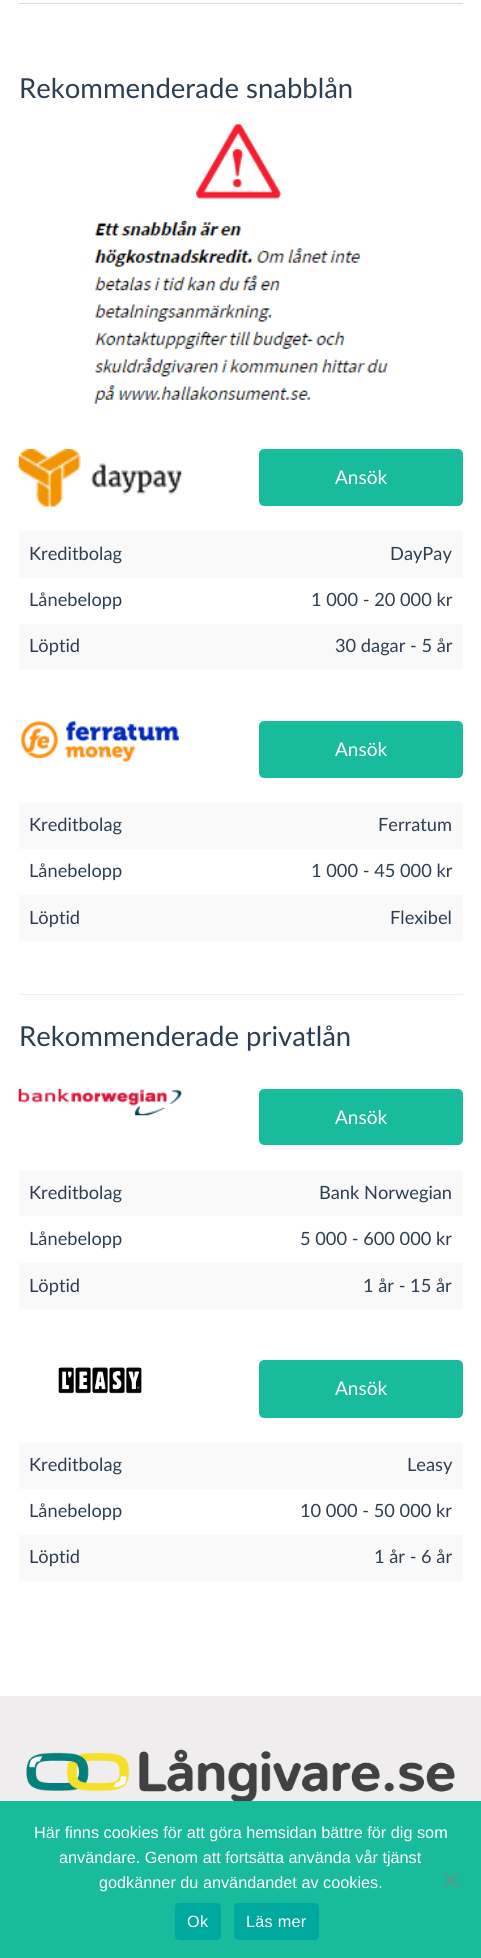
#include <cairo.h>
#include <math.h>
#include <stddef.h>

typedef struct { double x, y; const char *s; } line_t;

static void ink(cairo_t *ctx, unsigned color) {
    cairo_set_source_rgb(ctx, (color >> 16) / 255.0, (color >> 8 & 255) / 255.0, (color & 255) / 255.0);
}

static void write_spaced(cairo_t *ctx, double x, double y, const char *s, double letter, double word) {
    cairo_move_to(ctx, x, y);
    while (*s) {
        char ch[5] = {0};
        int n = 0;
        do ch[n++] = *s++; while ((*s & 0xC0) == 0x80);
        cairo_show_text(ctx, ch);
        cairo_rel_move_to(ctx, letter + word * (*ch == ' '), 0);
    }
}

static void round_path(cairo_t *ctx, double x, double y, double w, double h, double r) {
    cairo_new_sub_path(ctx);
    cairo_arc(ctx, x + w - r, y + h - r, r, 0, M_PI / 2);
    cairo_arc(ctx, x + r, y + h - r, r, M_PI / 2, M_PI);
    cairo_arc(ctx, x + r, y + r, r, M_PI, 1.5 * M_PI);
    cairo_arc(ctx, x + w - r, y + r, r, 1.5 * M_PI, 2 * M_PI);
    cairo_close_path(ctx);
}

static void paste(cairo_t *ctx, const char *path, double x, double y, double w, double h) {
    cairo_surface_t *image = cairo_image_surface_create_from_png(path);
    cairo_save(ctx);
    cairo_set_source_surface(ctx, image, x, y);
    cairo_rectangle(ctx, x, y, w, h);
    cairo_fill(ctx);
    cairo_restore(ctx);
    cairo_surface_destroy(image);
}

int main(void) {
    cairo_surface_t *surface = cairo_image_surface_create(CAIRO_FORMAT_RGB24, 481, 1958);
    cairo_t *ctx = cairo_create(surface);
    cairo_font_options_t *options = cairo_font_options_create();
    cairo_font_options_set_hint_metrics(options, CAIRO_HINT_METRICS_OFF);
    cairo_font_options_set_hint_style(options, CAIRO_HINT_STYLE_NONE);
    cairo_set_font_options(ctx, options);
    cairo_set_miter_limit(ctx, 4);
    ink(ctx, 0xFFFFFF);
    cairo_paint(ctx);
    ink(ctx, 0xDDDDDD);
    cairo_rectangle(ctx, 19, 3, 444, 1);
    cairo_fill(ctx);
    cairo_select_font_face(ctx, "Lato", CAIRO_FONT_SLANT_NORMAL, CAIRO_FONT_WEIGHT_NORMAL);
    cairo_set_font_size(ctx, 27.5);
    ink(ctx, 0x2C3E50);
    cairo_move_to(ctx, 19, 98);
    cairo_show_text(ctx, "Rekommenderade snabblån");
    paste(ctx, "media/1.png", 94, 124, 295, 280);
    paste(ctx, "media/2.png", 18, 449, 164, 58);
    ink(ctx, 0x18BC9C);
    round_path(ctx, 260.5, 450.5, 201, 54, 3.5);
    cairo_fill_preserve(ctx);
    cairo_set_line_width(ctx, 3);
    cairo_stroke(ctx);
    cairo_set_font_size(ctx, 19);
    ink(ctx, 0xFFFFFF);
    cairo_move_to(ctx, 335, 484);
    cairo_show_text(ctx, "Ansök");
    ink(ctx, 0xF9F9F9);
    cairo_rectangle(ctx, 19, 531, 444, 47);
    cairo_fill(ctx);
    cairo_set_font_size(ctx, 18.25);
    ink(ctx, 0x2C3E50);
    {
        static const line_t items[] = {
            {29, 560, "Kreditbolag"},
            {390, 560, "DayPay"},
            {29, 606, "Lånebelopp"},
            {311, 606, "1 000 - 20 000 kr"},
        };
        for (size_t i = 0; i < sizeof items / sizeof *items; i++) {
            cairo_move_to(ctx, items[i].x, items[i].y);
            cairo_show_text(ctx, items[i].s);
        }
    }
    ink(ctx, 0xF9F9F9);
    cairo_rectangle(ctx, 19, 624, 444, 46);
    cairo_fill(ctx);
    ink(ctx, 0x2C3E50);
    cairo_move_to(ctx, 29, 652);
    cairo_show_text(ctx, "Löptid");
    cairo_move_to(ctx, 335, 652);
    cairo_show_text(ctx, "30 dagar - 5 år");
    paste(ctx, "media/3.png", 21, 721, 158, 41);
    ink(ctx, 0x18BC9C);
    round_path(ctx, 260.5, 722.5, 201, 54, 3.5);
    cairo_fill_preserve(ctx);
    cairo_stroke(ctx);
    cairo_set_font_size(ctx, 19);
    ink(ctx, 0xFFFFFF);
    cairo_move_to(ctx, 335, 756);
    cairo_show_text(ctx, "Ansök");
    ink(ctx, 0xF9F9F9);
    cairo_rectangle(ctx, 19, 803, 444, 46);
    cairo_fill(ctx);
    cairo_set_font_size(ctx, 18.25);
    ink(ctx, 0x2C3E50);
    {
        static const line_t items[] = {
            {29, 831, "Kreditbolag"},
            {378, 831, "Ferratum"},
            {29, 877, "Lånebelopp"},
            {311, 877, "1 000 - 45 000 kr"},
        };
        for (size_t i = 0; i < sizeof items / sizeof *items; i++) {
            cairo_move_to(ctx, items[i].x, items[i].y);
            cairo_show_text(ctx, items[i].s);
        }
    }
    ink(ctx, 0xF9F9F9);
    cairo_rectangle(ctx, 19, 895, 444, 46);
    cairo_fill(ctx);
    ink(ctx, 0x2C3E50);
    cairo_move_to(ctx, 29, 924);
    cairo_show_text(ctx, "Löptid");
    cairo_move_to(ctx, 390, 924);
    cairo_show_text(ctx, "Flexibel");
    ink(ctx, 0xECF0F1);
    cairo_rectangle(ctx, 19, 994, 444, 1);
    cairo_fill(ctx);
    cairo_set_font_size(ctx, 27.5);
    ink(ctx, 0x2C3E50);
    cairo_move_to(ctx, 19, 1046);
    cairo_show_text(ctx, "Rekommenderade privatlån");
    paste(ctx, "media/4.png", 18, 1089, 164, 27);
    ink(ctx, 0x18BC9C);
    round_path(ctx, 260.5, 1090.5, 201, 53, 3.5);
    cairo_fill_preserve(ctx);
    cairo_stroke(ctx);
    cairo_set_font_size(ctx, 19);
    ink(ctx, 0xFFFFFF);
    cairo_move_to(ctx, 335, 1124);
    cairo_show_text(ctx, "Ansök");
    ink(ctx, 0xF9F9F9);
    cairo_rectangle(ctx, 19, 1170, 444, 46);
    cairo_fill(ctx);
    cairo_set_font_size(ctx, 18.25);
    ink(ctx, 0x2C3E50);
    {
        static const line_t items[] = {
            {29, 1199, "Kreditbolag"},
            {319, 1199, "Bank Norwegian"},
            {29, 1245, "Lånebelopp"},
            {300, 1245, "5 000 - 600 000 kr"},
        };
        for (size_t i = 0; i < sizeof items / sizeof *items; i++) {
            cairo_move_to(ctx, items[i].x, items[i].y);
            cairo_show_text(ctx, items[i].s);
        }
    }
    ink(ctx, 0xF9F9F9);
    cairo_rectangle(ctx, 19, 1263, 444, 46);
    cairo_fill(ctx);
    ink(ctx, 0x2C3E50);
    cairo_move_to(ctx, 29, 1292);
    cairo_show_text(ctx, "Löptid");
    cairo_move_to(ctx, 363, 1292);
    cairo_show_text(ctx, "1 år - 15 år");
    paste(ctx, "media/5.png", 58, 1367, 84, 27);
    ink(ctx, 0x18BC9C);
    round_path(ctx, 260.5, 1361.5, 201, 55, 3.5);
    cairo_fill_preserve(ctx);
    cairo_stroke(ctx);
    cairo_set_font_size(ctx, 19);
    ink(ctx, 0xFFFFFF);
    cairo_move_to(ctx, 335, 1395);
    cairo_show_text(ctx, "Ansök");
    ink(ctx, 0xF9F9F9);
    cairo_rectangle(ctx, 19, 1443, 444, 46);
    cairo_fill(ctx);
    cairo_set_font_size(ctx, 18.25);
    ink(ctx, 0x2C3E50);
    {
        static const line_t items[] = {
            {29, 1471, "Kreditbolag"},
            {407, 1471, "Leasy"},
            {29, 1517, "Lånebelopp"},
            {300, 1517, "10 000 - 50 000 kr"},
        };
        for (size_t i = 0; i < sizeof items / sizeof *items; i++) {
            cairo_move_to(ctx, items[i].x, items[i].y);
            cairo_show_text(ctx, items[i].s);
        }
    }
    ink(ctx, 0xF9F9F9);
    cairo_rectangle(ctx, 19, 1535, 444, 46);
    cairo_fill(ctx);
    ink(ctx, 0x2C3E50);
    cairo_move_to(ctx, 29, 1563);
    cairo_show_text(ctx, "Löptid");
    cairo_move_to(ctx, 374, 1563);
    cairo_show_text(ctx, "1 år - 6 år");
    ink(ctx, 0xEFEDED);
    cairo_rectangle(ctx, 0, 1696, 481, 105);
    cairo_fill(ctx);
    paste(ctx, "media/6.png", 26, 1749, 429, 52);
    ink(ctx, 0x18BC9C);
    cairo_rectangle(ctx, 0, 1801, 481, 157);
    cairo_fill(ctx);
    cairo_select_font_face(ctx, "Liberation Sans", CAIRO_FONT_SLANT_NORMAL, CAIRO_FONT_WEIGHT_NORMAL);
    cairo_set_font_size(ctx, 16.25);
    ink(ctx, 0xFFFFFF);
    {
        static const line_t items[] = {
            {34, 1838, "Här finns cookies för att göra hemsidan bättre för dig som"},
            {59, 1863, "användare. Genom att fortsätta använda vår tjänst"},
            {99, 1888, "godkänner du användandet av cookies."},
        };
        for (size_t i = 0; i < sizeof items / sizeof *items; i++) {
            cairo_move_to(ctx, items[i].x, items[i].y);
            cairo_show_text(ctx, items[i].s);
        }
    }
    ink(ctx, 0x4C9E8E);
    cairo_new_path(ctx);
    cairo_move_to(ctx, 457, 1873);
    cairo_line_to(ctx, 459, 1875);
    cairo_line_to(ctx, 445.5, 1888);
    cairo_line_to(ctx, 443.5, 1886.5);
    cairo_close_path(ctx);
    cairo_fill(ctx);
    cairo_new_path(ctx);
    cairo_move_to(ctx, 443.5, 1875);
    cairo_line_to(ctx, 445.5, 1873);
    cairo_line_to(ctx, 459, 1886.5);
    cairo_line_to(ctx, 457, 1888);
    cairo_close_path(ctx);
    cairo_fill(ctx);
    ink(ctx, 0x00A99D);
    round_path(ctx, 175, 1903, 46, 37, 4);
    cairo_fill(ctx);
    ink(ctx, 0xFFFFFF);
    write_spaced(ctx, 187, 1927, "Ok", 0.25, 0);
    ink(ctx, 0x00A99D);
    round_path(ctx, 234, 1903, 85, 37, 4);
    cairo_fill(ctx);
    ink(ctx, 0xFFFFFF);
    write_spaced(ctx, 246, 1927, "Läs mer", 0.25, 0);
    cairo_surface_write_to_png(surface, "image.png");
    cairo_font_options_destroy(options);
    cairo_destroy(ctx);
    cairo_surface_destroy(surface);
    return 0;
}
